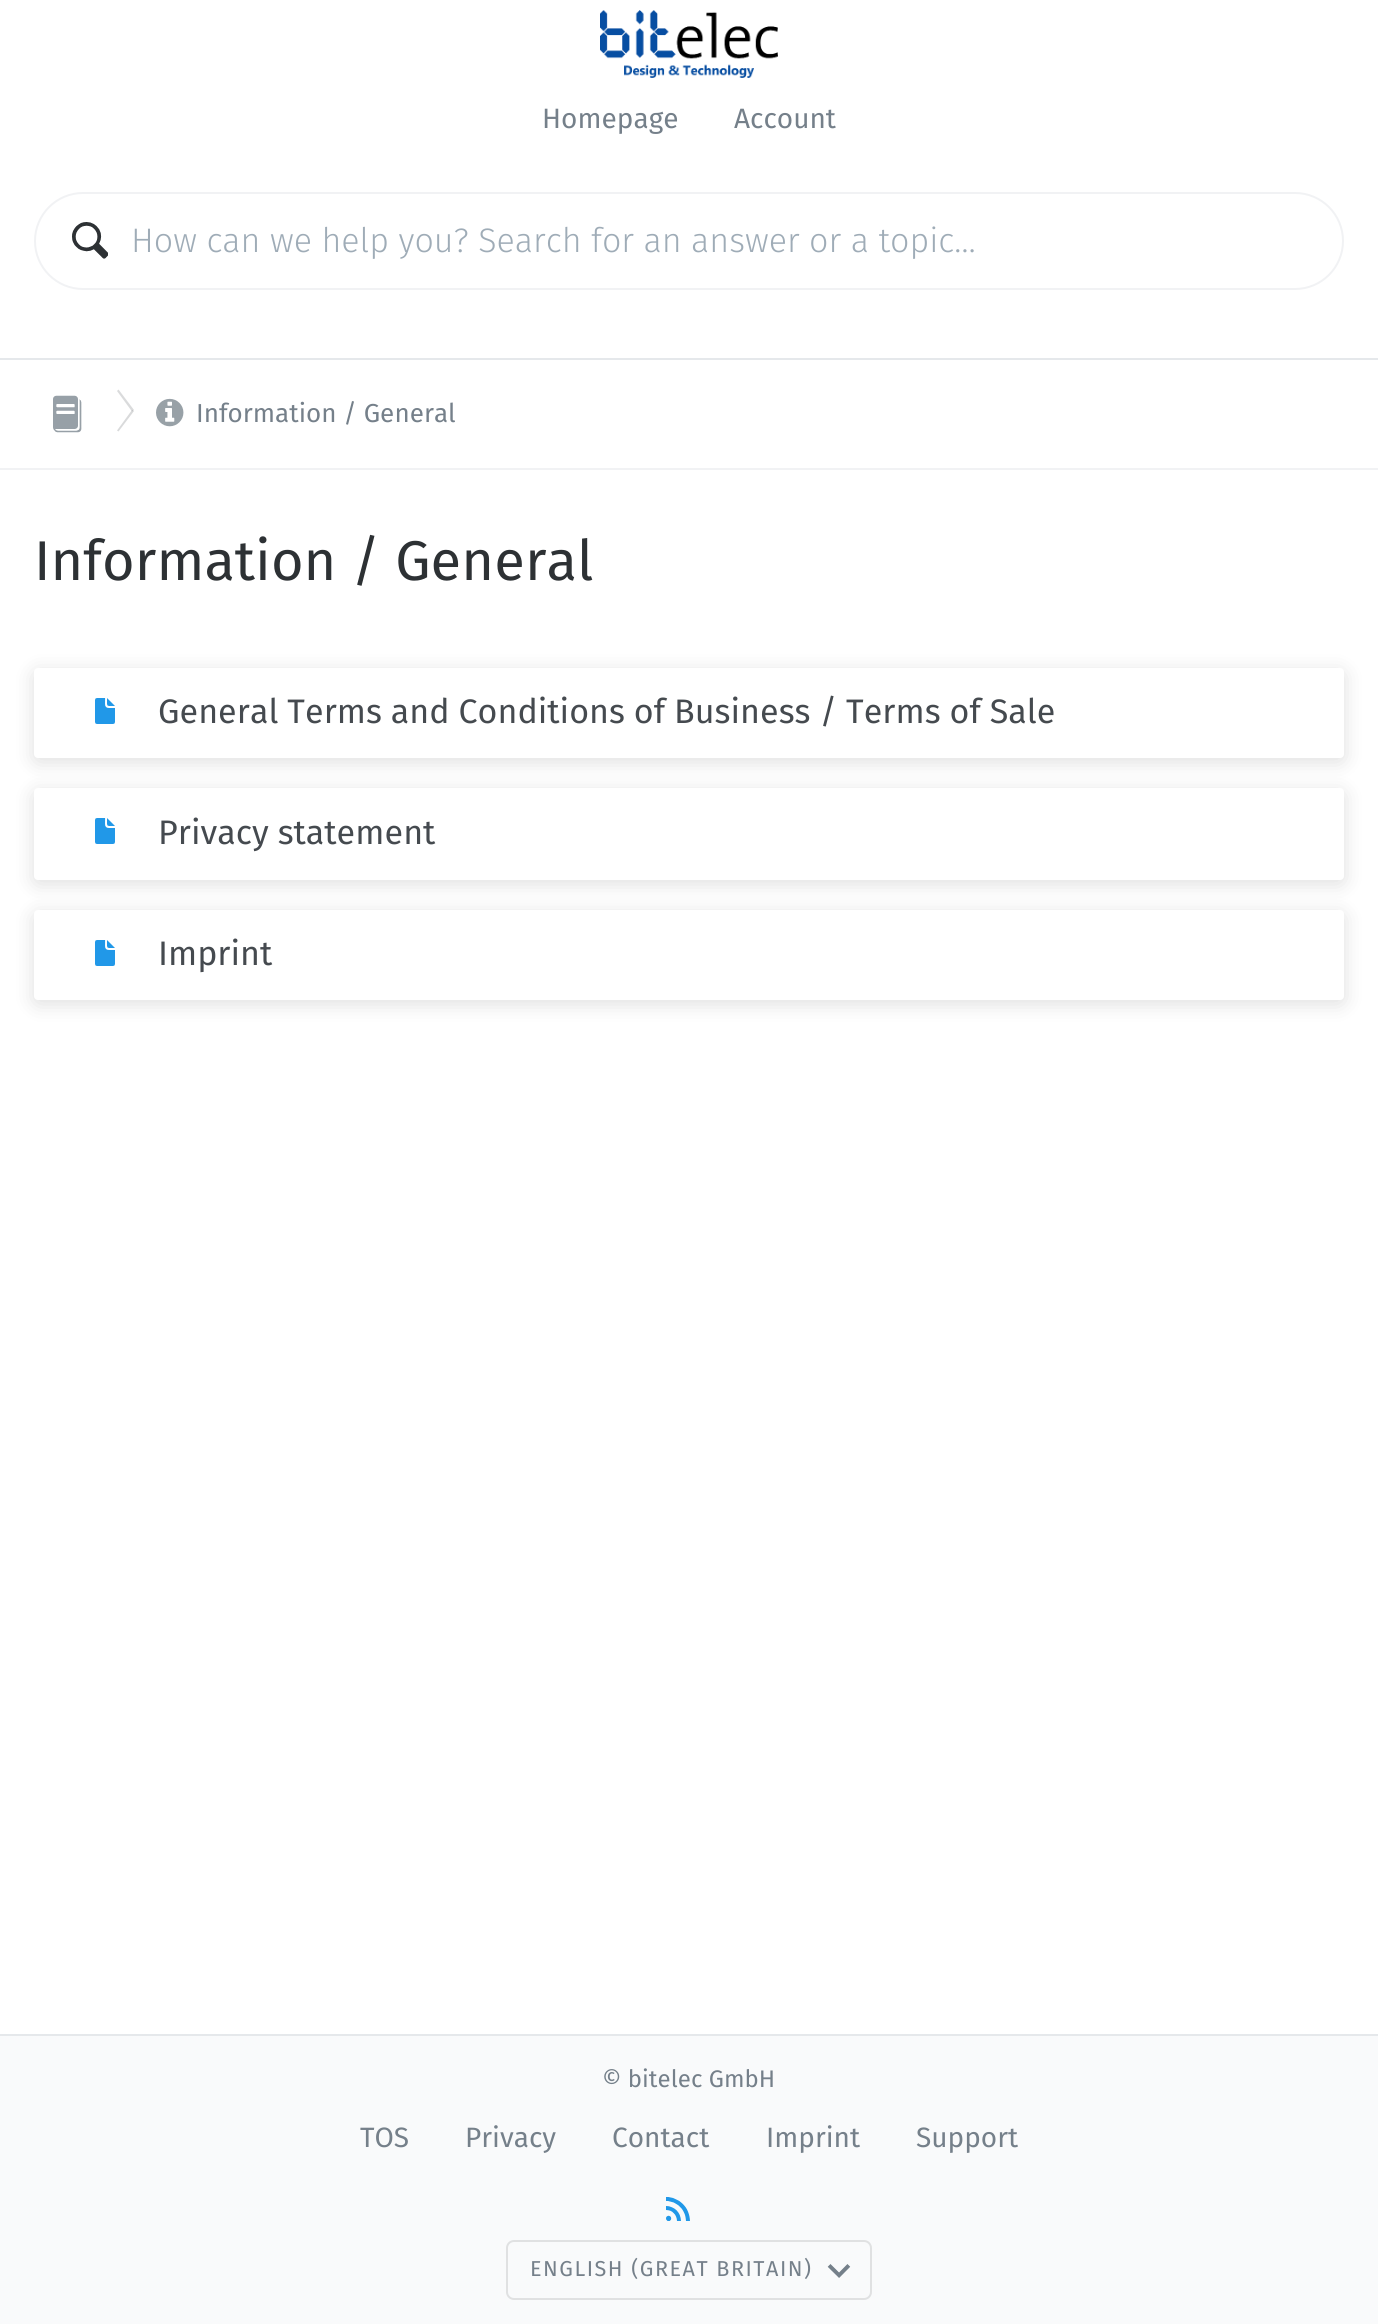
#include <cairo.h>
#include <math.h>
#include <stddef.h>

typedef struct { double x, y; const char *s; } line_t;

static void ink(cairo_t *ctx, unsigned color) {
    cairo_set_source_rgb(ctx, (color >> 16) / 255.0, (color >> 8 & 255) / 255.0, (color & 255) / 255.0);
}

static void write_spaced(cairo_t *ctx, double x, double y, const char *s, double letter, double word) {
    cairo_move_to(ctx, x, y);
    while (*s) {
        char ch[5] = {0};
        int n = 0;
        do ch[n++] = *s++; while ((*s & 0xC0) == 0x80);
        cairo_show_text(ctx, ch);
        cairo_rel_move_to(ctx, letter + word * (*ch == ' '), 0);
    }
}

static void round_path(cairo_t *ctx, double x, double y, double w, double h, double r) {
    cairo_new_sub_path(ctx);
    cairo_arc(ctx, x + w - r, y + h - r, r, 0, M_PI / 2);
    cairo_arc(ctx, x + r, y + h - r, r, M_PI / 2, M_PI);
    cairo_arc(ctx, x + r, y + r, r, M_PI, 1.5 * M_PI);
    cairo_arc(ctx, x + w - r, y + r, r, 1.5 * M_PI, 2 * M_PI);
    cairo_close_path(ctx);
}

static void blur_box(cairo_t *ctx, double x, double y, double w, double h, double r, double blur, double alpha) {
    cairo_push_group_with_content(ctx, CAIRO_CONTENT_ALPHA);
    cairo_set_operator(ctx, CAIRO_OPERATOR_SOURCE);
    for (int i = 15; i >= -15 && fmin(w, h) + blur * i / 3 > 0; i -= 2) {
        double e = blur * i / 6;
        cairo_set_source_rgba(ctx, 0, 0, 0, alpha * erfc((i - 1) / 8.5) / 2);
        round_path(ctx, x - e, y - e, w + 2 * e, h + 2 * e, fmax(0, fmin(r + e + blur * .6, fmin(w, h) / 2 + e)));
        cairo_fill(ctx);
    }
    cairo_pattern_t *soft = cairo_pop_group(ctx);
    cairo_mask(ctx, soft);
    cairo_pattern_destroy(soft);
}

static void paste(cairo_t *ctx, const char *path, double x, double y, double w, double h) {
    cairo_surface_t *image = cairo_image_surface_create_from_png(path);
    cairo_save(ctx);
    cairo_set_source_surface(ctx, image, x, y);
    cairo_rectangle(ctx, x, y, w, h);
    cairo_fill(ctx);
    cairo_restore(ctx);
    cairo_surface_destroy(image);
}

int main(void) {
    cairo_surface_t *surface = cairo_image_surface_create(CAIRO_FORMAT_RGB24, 1378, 2324);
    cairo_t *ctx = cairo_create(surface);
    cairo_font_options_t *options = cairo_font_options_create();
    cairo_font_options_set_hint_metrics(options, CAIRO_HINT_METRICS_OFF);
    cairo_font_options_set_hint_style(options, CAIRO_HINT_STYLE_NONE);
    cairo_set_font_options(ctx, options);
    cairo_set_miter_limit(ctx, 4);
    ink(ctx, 0xFFFFFF);
    cairo_paint(ctx);
    ink(ctx, 0xE5E8EB);
    cairo_rectangle(ctx, 0, 358, 1378, 2);
    cairo_fill(ctx);
    paste(ctx, "media/1.png", 600, 10, 178, 68);
    cairo_select_font_face(ctx, "Fira Sans", CAIRO_FONT_SLANT_NORMAL, CAIRO_FONT_WEIGHT_NORMAL);
    cairo_set_font_size(ctx, 28);
    ink(ctx, 0x75808A);
    cairo_move_to(ctx, 542, 128);
    cairo_show_text(ctx, "Homepage");
    cairo_move_to(ctx, 734, 128);
    cairo_show_text(ctx, "Account");
    round_path(ctx, 35, 193, 1308, 96, 48);
    ink(ctx, 0xF1F2F4);
    cairo_stroke(ctx);
    paste(ctx, "media/2.png", 72, 222, 36, 37);
    cairo_select_font_face(ctx, "Fira Sans Light", CAIRO_FONT_SLANT_NORMAL, CAIRO_FONT_WEIGHT_NORMAL);
    cairo_set_font_size(ctx, 34);
    ink(ctx, 0x9FACB7);
    cairo_move_to(ctx, 131, 252);
    cairo_show_text(ctx, "How can we help you? Search for an answer or a topic…");
    ink(ctx, 0xF1F2F4);
    cairo_rectangle(ctx, 0, 468, 1378, 2);
    cairo_fill(ctx);
    paste(ctx, "media/3.png", 53, 395, 29, 38);
    ink(ctx, 0xDADBDC);
    cairo_new_path(ctx);
    cairo_move_to(ctx, 117, 391);
    cairo_line_to(ctx, 118.5, 389.5);
    cairo_line_to(ctx, 134, 410);
    cairo_line_to(ctx, 132, 411.5);
    cairo_close_path(ctx);
    cairo_fill(ctx);
    cairo_set_source_rgba(ctx, 0.271, 0.29, 0.31, 0.2);
    cairo_new_path(ctx);
    cairo_move_to(ctx, 132, 410);
    cairo_line_to(ctx, 134, 411);
    cairo_line_to(ctx, 118.5, 431.5);
    cairo_line_to(ctx, 117, 430.5);
    cairo_close_path(ctx);
    cairo_fill(ctx);
    paste(ctx, "media/4.png", 156, 398, 28, 29);
    cairo_select_font_face(ctx, "Fira Sans", CAIRO_FONT_SLANT_NORMAL, CAIRO_FONT_WEIGHT_NORMAL);
    cairo_set_font_size(ctx, 26);
    ink(ctx, 0x75808A);
    cairo_move_to(ctx, 196, 422);
    cairo_show_text(ctx, "Information / General");
    cairo_set_font_size(ctx, 56);
    ink(ctx, 0x2D3134);
    cairo_move_to(ctx, 34, 580);
    cairo_show_text(ctx, "Information / General");
    ink(ctx, 0x000000);
    blur_box(ctx, 34, 672, 1310, 90, 4, 10, 0.13);
    ink(ctx, 0xFFFFFF);
    round_path(ctx, 34, 668, 1310, 90, 4);
    cairo_fill(ctx);
    paste(ctx, "media/5.png", 95, 698, 20, 26);
    cairo_set_font_size(ctx, 34);
    ink(ctx, 0x454A4F);
    cairo_move_to(ctx, 158, 723);
    cairo_show_text(ctx, "General Terms and Conditions of Business / Terms of Sale");
    ink(ctx, 0x000000);
    blur_box(ctx, 34, 792, 1310, 92, 4, 10, 0.13);
    ink(ctx, 0xFFFFFF);
    round_path(ctx, 34, 788, 1310, 92, 4);
    cairo_fill(ctx);
    paste(ctx, "media/5.png", 95, 818, 20, 26);
    ink(ctx, 0x454A4F);
    cairo_move_to(ctx, 158, 844);
    cairo_show_text(ctx, "Privacy statement");
    ink(ctx, 0x000000);
    blur_box(ctx, 34, 914, 1310, 90, 4, 10, 0.13);
    ink(ctx, 0xFFFFFF);
    round_path(ctx, 34, 910, 1310, 90, 4);
    cairo_fill(ctx);
    paste(ctx, "media/5.png", 95, 940, 20, 26);
    ink(ctx, 0x454A4F);
    cairo_move_to(ctx, 158, 965);
    cairo_show_text(ctx, "Imprint");
    ink(ctx, 0xF9FAFB);
    cairo_rectangle(ctx, 0, 2036, 1378, 288);
    cairo_fill(ctx);
    ink(ctx, 0xE5E8EB);
    cairo_rectangle(ctx, 0, 2034, 1378, 2);
    cairo_fill(ctx);
    cairo_set_font_size(ctx, 24);
    ink(ctx, 0x75808A);
    cairo_move_to(ctx, 602, 2087);
    cairo_show_text(ctx, "© bitelec GmbH");
    cairo_set_font_size(ctx, 28);
    {
        static const line_t items[] = {
            {360, 2147, "TOS"},
            {465, 2147, "Privacy"},
            {612, 2147, "Contact"},
            {766, 2147, "Imprint"},
            {916, 2147, "Support"},
        };
        for (size_t i = 0; i < sizeof items / sizeof *items; i++) {
            cairo_move_to(ctx, items[i].x, items[i].y);
            cairo_show_text(ctx, items[i].s);
        }
    }
    paste(ctx, "media/6.png", 666, 2197, 24, 24);
    round_path(ctx, 507, 2241, 364, 58, 7);
    ink(ctx, 0xE0E1E2);
    cairo_stroke(ctx);
    cairo_set_font_size(ctx, 21.6);
    ink(ctx, 0x75808A);
    write_spaced(ctx, 530, 2276, "ENGLISH (GREAT BRITAIN)", 1.5, 0);
    paste(ctx, "media/7.png", 827, 2264, 24, 14);
    cairo_surface_write_to_png(surface, "image.png");
    cairo_font_options_destroy(options);
    cairo_destroy(ctx);
    cairo_surface_destroy(surface);
    return 0;
}
